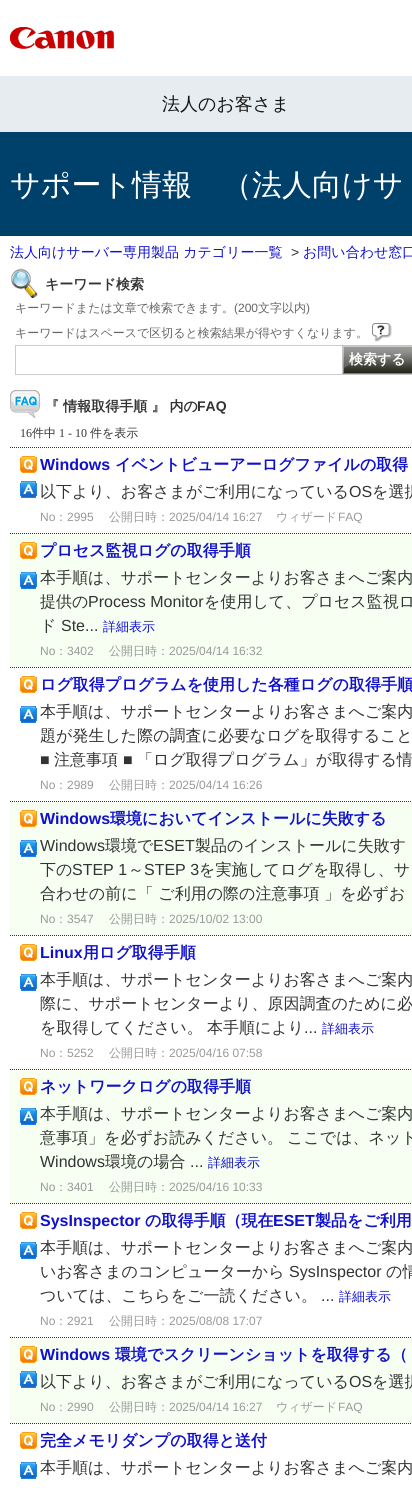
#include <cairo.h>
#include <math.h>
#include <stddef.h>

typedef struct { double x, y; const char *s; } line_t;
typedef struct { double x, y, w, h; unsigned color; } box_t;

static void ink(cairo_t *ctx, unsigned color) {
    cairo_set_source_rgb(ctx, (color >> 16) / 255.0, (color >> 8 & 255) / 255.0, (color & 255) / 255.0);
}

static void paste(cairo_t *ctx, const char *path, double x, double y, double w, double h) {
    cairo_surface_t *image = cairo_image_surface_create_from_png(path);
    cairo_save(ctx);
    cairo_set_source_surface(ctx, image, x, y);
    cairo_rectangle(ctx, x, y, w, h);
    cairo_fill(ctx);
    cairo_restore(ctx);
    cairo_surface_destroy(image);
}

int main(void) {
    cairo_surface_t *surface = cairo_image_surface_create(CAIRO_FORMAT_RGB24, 412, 1488);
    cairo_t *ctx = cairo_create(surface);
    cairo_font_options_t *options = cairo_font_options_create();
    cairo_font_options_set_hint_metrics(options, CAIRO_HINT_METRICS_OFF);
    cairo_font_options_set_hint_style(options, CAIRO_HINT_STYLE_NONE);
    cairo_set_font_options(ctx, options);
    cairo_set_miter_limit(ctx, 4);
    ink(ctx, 0xFFFFFF);
    cairo_paint(ctx);
    paste(ctx, "media/1.png", 10, 27, 104, 22);
    ink(ctx, 0xE6ECEF);
    cairo_rectangle(ctx, 0, 76, 412, 56);
    cairo_fill(ctx);
    cairo_select_font_face(ctx, "WenQuanYi Zen Hei Medium", CAIRO_FONT_SLANT_NORMAL, CAIRO_FONT_WEIGHT_NORMAL);
    cairo_set_font_size(ctx, 18);
    ink(ctx, 0x141414);
    cairo_move_to(ctx, 162, 110);
    cairo_show_text(ctx, "法人のお客さま");
    ink(ctx, 0x00416B);
    cairo_rectangle(ctx, 0, 132, 412, 104);
    cairo_fill(ctx);
    cairo_set_font_size(ctx, 30);
    ink(ctx, 0xFFFFFF);
    cairo_move_to(ctx, 10, 195);
    cairo_show_text(ctx, "サポート情報　（法人向けサ");
    cairo_set_font_size(ctx, 14);
    ink(ctx, 0x1111CC);
    cairo_move_to(ctx, 10, 257);
    cairo_show_text(ctx, "法人向けサーバー専用製品 カテゴリー一覧");
    cairo_select_font_face(ctx, "Liberation Sans", CAIRO_FONT_SLANT_NORMAL, CAIRO_FONT_WEIGHT_NORMAL);
    ink(ctx, 0x333333);
    cairo_move_to(ctx, 291, 257);
    cairo_show_text(ctx, ">");
    cairo_select_font_face(ctx, "WenQuanYi Zen Hei Medium", CAIRO_FONT_SLANT_NORMAL, CAIRO_FONT_WEIGHT_NORMAL);
    ink(ctx, 0x1111CC);
    cairo_move_to(ctx, 303, 257);
    cairo_show_text(ctx, "お問い合わせ窓口");
    paste(ctx, "media/2.png", 11, 268, 27, 30);
    cairo_select_font_face(ctx, "WenQuanYi Zen Hei", CAIRO_FONT_SLANT_NORMAL, CAIRO_FONT_WEIGHT_BOLD);
    ink(ctx, 0x333333);
    cairo_move_to(ctx, 45, 289);
    cairo_show_text(ctx, "キーワード検索");
    cairo_select_font_face(ctx, "WenQuanYi Zen Hei Medium", CAIRO_FONT_SLANT_NORMAL, CAIRO_FONT_WEIGHT_NORMAL);
    cairo_set_font_size(ctx, 12);
    ink(ctx, 0x666666);
    cairo_move_to(ctx, 15, 312);
    cairo_show_text(ctx, "キーワードまたは文章で検索できます。");
    cairo_select_font_face(ctx, "Liberation Sans", CAIRO_FONT_SLANT_NORMAL, CAIRO_FONT_WEIGHT_NORMAL);
    cairo_move_to(ctx, 234, 312);
    cairo_show_text(ctx, "(200");
    cairo_select_font_face(ctx, "WenQuanYi Zen Hei Medium", CAIRO_FONT_SLANT_NORMAL, CAIRO_FONT_WEIGHT_NORMAL);
    cairo_move_to(ctx, 258, 312);
    cairo_show_text(ctx, "文字以内");
    cairo_select_font_face(ctx, "Liberation Sans", CAIRO_FONT_SLANT_NORMAL, CAIRO_FONT_WEIGHT_NORMAL);
    cairo_move_to(ctx, 306, 312);
    cairo_show_text(ctx, ")");
    cairo_select_font_face(ctx, "WenQuanYi Zen Hei Medium", CAIRO_FONT_SLANT_NORMAL, CAIRO_FONT_WEIGHT_NORMAL);
    cairo_move_to(ctx, 15, 337);
    cairo_show_text(ctx, "キーワードはスペースで区切ると検索結果が得やすくなります。");
    paste(ctx, "media/3.png", 372, 323, 20, 19);
    {
        static const box_t items[] = {
            {15, 345, 327, 1, 0xCCCCCC},
            {15, 374, 327, 1, 0xCCCCCC},
            {15, 345, 1, 30, 0xCCCCCC},
        };
        for (size_t i = 0; i < sizeof items / sizeof *items; i++) {
            ink(ctx, items[i].color);
            cairo_rectangle(ctx, items[i].x, items[i].y, items[i].w, items[i].h);
            cairo_fill(ctx);
        }
    }
    paste(ctx, "media/4.png", 342, 345, 70, 30);
    cairo_select_font_face(ctx, "WenQuanYi Zen Hei", CAIRO_FONT_SLANT_NORMAL, CAIRO_FONT_WEIGHT_BOLD);
    cairo_set_font_size(ctx, 14);
    ink(ctx, 0xFFFFFF);
    cairo_move_to(ctx, 349, 364);
    cairo_show_text(ctx, "検索する");
    paste(ctx, "media/5.png", 10, 390, 30, 28);
    ink(ctx, 0x333333);
    cairo_move_to(ctx, 45, 411);
    cairo_show_text(ctx, "『 情報取得手順 』 内の");
    cairo_select_font_face(ctx, "Liberation Sans", CAIRO_FONT_SLANT_NORMAL, CAIRO_FONT_WEIGHT_BOLD);
    cairo_move_to(ctx, 197, 411);
    cairo_show_text(ctx, "FAQ");
    cairo_select_font_face(ctx, "Liberation Serif", CAIRO_FONT_SLANT_NORMAL, CAIRO_FONT_WEIGHT_NORMAL);
    cairo_set_font_size(ctx, 12);
    cairo_move_to(ctx, 20, 437);
    cairo_show_text(ctx, "16");
    cairo_select_font_face(ctx, "WenQuanYi Zen Hei Medium", CAIRO_FONT_SLANT_NORMAL, CAIRO_FONT_WEIGHT_NORMAL);
    cairo_move_to(ctx, 32, 437);
    cairo_show_text(ctx, "件中");
    cairo_select_font_face(ctx, "Liberation Serif", CAIRO_FONT_SLANT_NORMAL, CAIRO_FONT_WEIGHT_NORMAL);
    cairo_move_to(ctx, 59, 437);
    cairo_show_text(ctx, "1 - 10");
    cairo_select_font_face(ctx, "WenQuanYi Zen Hei Medium", CAIRO_FONT_SLANT_NORMAL, CAIRO_FONT_WEIGHT_NORMAL);
    cairo_move_to(ctx, 90, 437);
    cairo_show_text(ctx, "件を表示");
    cairo_new_path(ctx);
    cairo_move_to(ctx, 10, 447.5);
    cairo_line_to(ctx, 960, 447.5);
    cairo_set_line_width(ctx, 1);
    cairo_set_dash(ctx, (double[]){1, 1}, 2, 0);
    cairo_stroke(ctx);
    cairo_new_path(ctx);
    cairo_move_to(ctx, 10, 533.5);
    cairo_line_to(ctx, 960, 533.5);
    cairo_stroke(ctx);
    paste(ctx, "media/6.png", 20, 456, 17, 17);
    cairo_select_font_face(ctx, "Liberation Sans", CAIRO_FONT_SLANT_NORMAL, CAIRO_FONT_WEIGHT_BOLD);
    cairo_set_font_size(ctx, 16);
    ink(ctx, 0x1111CC);
    cairo_move_to(ctx, 40, 470);
    cairo_show_text(ctx, "Windows");
    cairo_select_font_face(ctx, "WenQuanYi Zen Hei", CAIRO_FONT_SLANT_NORMAL, CAIRO_FONT_WEIGHT_BOLD);
    cairo_move_to(ctx, 115, 470);
    cairo_show_text(ctx, "イベントビューアーログファイルの取得");
    paste(ctx, "media/7.png", 20, 481, 17, 17);
    cairo_select_font_face(ctx, "WenQuanYi Zen Hei Medium", CAIRO_FONT_SLANT_NORMAL, CAIRO_FONT_WEIGHT_NORMAL);
    ink(ctx, 0x333333);
    cairo_move_to(ctx, 40, 497);
    cairo_show_text(ctx, "以下より、お客さまがご利用になっている");
    cairo_select_font_face(ctx, "Liberation Sans", CAIRO_FONT_SLANT_NORMAL, CAIRO_FONT_WEIGHT_NORMAL);
    cairo_move_to(ctx, 349, 497);
    cairo_show_text(ctx, "OS");
    cairo_select_font_face(ctx, "WenQuanYi Zen Hei Medium", CAIRO_FONT_SLANT_NORMAL, CAIRO_FONT_WEIGHT_NORMAL);
    cairo_move_to(ctx, 372, 497);
    cairo_show_text(ctx, "を選択");
    cairo_select_font_face(ctx, "Liberation Sans", CAIRO_FONT_SLANT_NORMAL, CAIRO_FONT_WEIGHT_NORMAL);
    cairo_set_font_size(ctx, 12);
    ink(ctx, 0x999999);
    cairo_move_to(ctx, 40, 521);
    cairo_show_text(ctx, "No");
    cairo_select_font_face(ctx, "WenQuanYi Zen Hei Medium", CAIRO_FONT_SLANT_NORMAL, CAIRO_FONT_WEIGHT_NORMAL);
    cairo_move_to(ctx, 55, 521);
    cairo_show_text(ctx, "：");
    cairo_select_font_face(ctx, "Liberation Sans", CAIRO_FONT_SLANT_NORMAL, CAIRO_FONT_WEIGHT_NORMAL);
    cairo_move_to(ctx, 67, 521);
    cairo_show_text(ctx, "2995");
    cairo_select_font_face(ctx, "WenQuanYi Zen Hei Medium", CAIRO_FONT_SLANT_NORMAL, CAIRO_FONT_WEIGHT_NORMAL);
    cairo_move_to(ctx, 109, 521);
    cairo_show_text(ctx, "公開日時：");
    cairo_select_font_face(ctx, "Liberation Sans", CAIRO_FONT_SLANT_NORMAL, CAIRO_FONT_WEIGHT_NORMAL);
    cairo_move_to(ctx, 169, 521);
    cairo_show_text(ctx, "2025/04/14 16:27");
    cairo_select_font_face(ctx, "WenQuanYi Zen Hei Medium", CAIRO_FONT_SLANT_NORMAL, CAIRO_FONT_WEIGHT_NORMAL);
    cairo_move_to(ctx, 276, 521);
    cairo_show_text(ctx, "ウィザード");
    cairo_select_font_face(ctx, "Liberation Sans", CAIRO_FONT_SLANT_NORMAL, CAIRO_FONT_WEIGHT_NORMAL);
    cairo_move_to(ctx, 338, 521);
    cairo_show_text(ctx, "FAQ");
    ink(ctx, 0xF6FFF2);
    cairo_rectangle(ctx, 10, 534, 402, 134);
    cairo_fill(ctx);
    cairo_new_path(ctx);
    cairo_move_to(ctx, 10, 667.5);
    cairo_line_to(ctx, 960, 667.5);
    ink(ctx, 0x333333);
    cairo_stroke(ctx);
    paste(ctx, "media/8.png", 20, 542, 17, 17);
    cairo_select_font_face(ctx, "WenQuanYi Zen Hei", CAIRO_FONT_SLANT_NORMAL, CAIRO_FONT_WEIGHT_BOLD);
    cairo_set_font_size(ctx, 16);
    ink(ctx, 0x1111CC);
    cairo_move_to(ctx, 40, 556);
    cairo_show_text(ctx, "プロセス監視ログの取得手順");
    paste(ctx, "media/9.png", 20, 572, 17, 17);
    cairo_select_font_face(ctx, "WenQuanYi Zen Hei Medium", CAIRO_FONT_SLANT_NORMAL, CAIRO_FONT_WEIGHT_NORMAL);
    ink(ctx, 0x333333);
    cairo_move_to(ctx, 40, 583);
    cairo_show_text(ctx, "本手順は、サポートセンターよりお客さまへご案内");
    cairo_move_to(ctx, 40, 607);
    cairo_show_text(ctx, "提供の");
    cairo_select_font_face(ctx, "Liberation Sans", CAIRO_FONT_SLANT_NORMAL, CAIRO_FONT_WEIGHT_NORMAL);
    cairo_move_to(ctx, 88, 607);
    cairo_show_text(ctx, "Process Monitor");
    cairo_select_font_face(ctx, "WenQuanYi Zen Hei Medium", CAIRO_FONT_SLANT_NORMAL, CAIRO_FONT_WEIGHT_NORMAL);
    cairo_move_to(ctx, 204, 607);
    cairo_show_text(ctx, "を使用して、プロセス監視ロ");
    cairo_move_to(ctx, 40, 631);
    cairo_show_text(ctx, "ド");
    cairo_select_font_face(ctx, "Liberation Sans", CAIRO_FONT_SLANT_NORMAL, CAIRO_FONT_WEIGHT_NORMAL);
    cairo_move_to(ctx, 61, 631);
    cairo_show_text(ctx, "Ste...");
    cairo_select_font_face(ctx, "WenQuanYi Zen Hei Medium", CAIRO_FONT_SLANT_NORMAL, CAIRO_FONT_WEIGHT_NORMAL);
    cairo_set_font_size(ctx, 13);
    ink(ctx, 0x1111CC);
    cairo_move_to(ctx, 103, 631);
    cairo_show_text(ctx, "詳細表示");
    cairo_select_font_face(ctx, "Liberation Sans", CAIRO_FONT_SLANT_NORMAL, CAIRO_FONT_WEIGHT_NORMAL);
    cairo_set_font_size(ctx, 12);
    ink(ctx, 0x999999);
    cairo_move_to(ctx, 40, 655);
    cairo_show_text(ctx, "No");
    cairo_select_font_face(ctx, "WenQuanYi Zen Hei Medium", CAIRO_FONT_SLANT_NORMAL, CAIRO_FONT_WEIGHT_NORMAL);
    cairo_move_to(ctx, 55, 655);
    cairo_show_text(ctx, "：");
    cairo_select_font_face(ctx, "Liberation Sans", CAIRO_FONT_SLANT_NORMAL, CAIRO_FONT_WEIGHT_NORMAL);
    cairo_move_to(ctx, 67, 655);
    cairo_show_text(ctx, "3402");
    cairo_select_font_face(ctx, "WenQuanYi Zen Hei Medium", CAIRO_FONT_SLANT_NORMAL, CAIRO_FONT_WEIGHT_NORMAL);
    cairo_move_to(ctx, 109, 655);
    cairo_show_text(ctx, "公開日時：");
    cairo_select_font_face(ctx, "Liberation Sans", CAIRO_FONT_SLANT_NORMAL, CAIRO_FONT_WEIGHT_NORMAL);
    cairo_move_to(ctx, 169, 655);
    cairo_show_text(ctx, "2025/04/14 16:32");
    cairo_new_path(ctx);
    cairo_move_to(ctx, 10, 801.5);
    cairo_line_to(ctx, 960, 801.5);
    ink(ctx, 0x333333);
    cairo_stroke(ctx);
    paste(ctx, "media/6.png", 20, 676, 17, 17);
    cairo_select_font_face(ctx, "WenQuanYi Zen Hei", CAIRO_FONT_SLANT_NORMAL, CAIRO_FONT_WEIGHT_BOLD);
    cairo_set_font_size(ctx, 16);
    ink(ctx, 0x1111CC);
    cairo_move_to(ctx, 40, 690);
    cairo_show_text(ctx, "ログ取得プログラムを使用した各種ログの取得手順");
    paste(ctx, "media/7.png", 20, 706, 17, 17);
    cairo_select_font_face(ctx, "WenQuanYi Zen Hei Medium", CAIRO_FONT_SLANT_NORMAL, CAIRO_FONT_WEIGHT_NORMAL);
    ink(ctx, 0x333333);
    cairo_move_to(ctx, 40, 717);
    cairo_show_text(ctx, "本手順は、サポートセンターよりお客さまへご案内");
    cairo_move_to(ctx, 40, 741);
    cairo_show_text(ctx, "題が発生した際の調査に必要なログを取得すること");
    cairo_select_font_face(ctx, "Liberation Sans", CAIRO_FONT_SLANT_NORMAL, CAIRO_FONT_WEIGHT_NORMAL);
    cairo_move_to(ctx, 40, 765);
    cairo_show_text(ctx, "■");
    cairo_select_font_face(ctx, "WenQuanYi Zen Hei Medium", CAIRO_FONT_SLANT_NORMAL, CAIRO_FONT_WEIGHT_NORMAL);
    cairo_move_to(ctx, 54, 765);
    cairo_show_text(ctx, "注意事項");
    cairo_select_font_face(ctx, "Liberation Sans", CAIRO_FONT_SLANT_NORMAL, CAIRO_FONT_WEIGHT_NORMAL);
    cairo_move_to(ctx, 123, 765);
    cairo_show_text(ctx, "■");
    cairo_select_font_face(ctx, "WenQuanYi Zen Hei Medium", CAIRO_FONT_SLANT_NORMAL, CAIRO_FONT_WEIGHT_NORMAL);
    cairo_move_to(ctx, 137, 765);
    cairo_show_text(ctx, "「ログ取得プログラム」が取得する情");
    cairo_select_font_face(ctx, "Liberation Sans", CAIRO_FONT_SLANT_NORMAL, CAIRO_FONT_WEIGHT_NORMAL);
    cairo_set_font_size(ctx, 12);
    ink(ctx, 0x999999);
    cairo_move_to(ctx, 40, 789);
    cairo_show_text(ctx, "No");
    cairo_select_font_face(ctx, "WenQuanYi Zen Hei Medium", CAIRO_FONT_SLANT_NORMAL, CAIRO_FONT_WEIGHT_NORMAL);
    cairo_move_to(ctx, 55, 789);
    cairo_show_text(ctx, "：");
    cairo_select_font_face(ctx, "Liberation Sans", CAIRO_FONT_SLANT_NORMAL, CAIRO_FONT_WEIGHT_NORMAL);
    cairo_move_to(ctx, 67, 789);
    cairo_show_text(ctx, "2989");
    cairo_select_font_face(ctx, "WenQuanYi Zen Hei Medium", CAIRO_FONT_SLANT_NORMAL, CAIRO_FONT_WEIGHT_NORMAL);
    cairo_move_to(ctx, 109, 789);
    cairo_show_text(ctx, "公開日時：");
    cairo_select_font_face(ctx, "Liberation Sans", CAIRO_FONT_SLANT_NORMAL, CAIRO_FONT_WEIGHT_NORMAL);
    cairo_move_to(ctx, 169, 789);
    cairo_show_text(ctx, "2025/04/14 16:26");
    ink(ctx, 0xF6FFF2);
    cairo_rectangle(ctx, 10, 802, 402, 134);
    cairo_fill(ctx);
    cairo_new_path(ctx);
    cairo_move_to(ctx, 10, 935.5);
    cairo_line_to(ctx, 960, 935.5);
    ink(ctx, 0x333333);
    cairo_stroke(ctx);
    paste(ctx, "media/8.png", 20, 810, 17, 17);
    cairo_select_font_face(ctx, "Liberation Sans", CAIRO_FONT_SLANT_NORMAL, CAIRO_FONT_WEIGHT_BOLD);
    cairo_set_font_size(ctx, 16);
    ink(ctx, 0x1111CC);
    cairo_move_to(ctx, 40, 824);
    cairo_show_text(ctx, "Windows");
    cairo_select_font_face(ctx, "WenQuanYi Zen Hei", CAIRO_FONT_SLANT_NORMAL, CAIRO_FONT_WEIGHT_BOLD);
    cairo_move_to(ctx, 110, 824);
    cairo_show_text(ctx, "環境においてインストールに失敗する");
    paste(ctx, "media/9.png", 20, 840, 17, 17);
    cairo_select_font_face(ctx, "Liberation Sans", CAIRO_FONT_SLANT_NORMAL, CAIRO_FONT_WEIGHT_NORMAL);
    ink(ctx, 0x333333);
    cairo_move_to(ctx, 40, 851);
    cairo_show_text(ctx, "Windows");
    cairo_select_font_face(ctx, "WenQuanYi Zen Hei Medium", CAIRO_FONT_SLANT_NORMAL, CAIRO_FONT_WEIGHT_NORMAL);
    cairo_move_to(ctx, 105, 851);
    cairo_show_text(ctx, "環境で");
    cairo_select_font_face(ctx, "Liberation Sans", CAIRO_FONT_SLANT_NORMAL, CAIRO_FONT_WEIGHT_NORMAL);
    cairo_move_to(ctx, 153, 851);
    cairo_show_text(ctx, "ESET");
    cairo_select_font_face(ctx, "WenQuanYi Zen Hei Medium", CAIRO_FONT_SLANT_NORMAL, CAIRO_FONT_WEIGHT_NORMAL);
    cairo_move_to(ctx, 195, 851);
    cairo_show_text(ctx, "製品のインストールに失敗す");
    cairo_move_to(ctx, 40, 875);
    cairo_show_text(ctx, "下の");
    cairo_select_font_face(ctx, "Liberation Sans", CAIRO_FONT_SLANT_NORMAL, CAIRO_FONT_WEIGHT_NORMAL);
    cairo_move_to(ctx, 72, 875);
    cairo_show_text(ctx, "STEP 1");
    cairo_select_font_face(ctx, "WenQuanYi Zen Hei Medium", CAIRO_FONT_SLANT_NORMAL, CAIRO_FONT_WEIGHT_NORMAL);
    cairo_move_to(ctx, 128, 875);
    cairo_show_text(ctx, "～");
    cairo_select_font_face(ctx, "Liberation Sans", CAIRO_FONT_SLANT_NORMAL, CAIRO_FONT_WEIGHT_NORMAL);
    cairo_move_to(ctx, 144, 875);
    cairo_show_text(ctx, "STEP 3");
    cairo_select_font_face(ctx, "WenQuanYi Zen Hei Medium", CAIRO_FONT_SLANT_NORMAL, CAIRO_FONT_WEIGHT_NORMAL);
    cairo_move_to(ctx, 199, 875);
    cairo_show_text(ctx, "を実施してログを取得し、サ");
    cairo_move_to(ctx, 40, 899);
    cairo_show_text(ctx, "合わせの前に「 ご利用の際の注意事項 」を必ずお");
    cairo_select_font_face(ctx, "Liberation Sans", CAIRO_FONT_SLANT_NORMAL, CAIRO_FONT_WEIGHT_NORMAL);
    cairo_set_font_size(ctx, 12);
    ink(ctx, 0x999999);
    cairo_move_to(ctx, 40, 923);
    cairo_show_text(ctx, "No");
    cairo_select_font_face(ctx, "WenQuanYi Zen Hei Medium", CAIRO_FONT_SLANT_NORMAL, CAIRO_FONT_WEIGHT_NORMAL);
    cairo_move_to(ctx, 55, 923);
    cairo_show_text(ctx, "：");
    cairo_select_font_face(ctx, "Liberation Sans", CAIRO_FONT_SLANT_NORMAL, CAIRO_FONT_WEIGHT_NORMAL);
    cairo_move_to(ctx, 67, 923);
    cairo_show_text(ctx, "3547");
    cairo_select_font_face(ctx, "WenQuanYi Zen Hei Medium", CAIRO_FONT_SLANT_NORMAL, CAIRO_FONT_WEIGHT_NORMAL);
    cairo_move_to(ctx, 109, 923);
    cairo_show_text(ctx, "公開日時：");
    cairo_select_font_face(ctx, "Liberation Sans", CAIRO_FONT_SLANT_NORMAL, CAIRO_FONT_WEIGHT_NORMAL);
    cairo_move_to(ctx, 169, 923);
    cairo_show_text(ctx, "2025/10/02 13:00");
    cairo_new_path(ctx);
    cairo_move_to(ctx, 10, 1069.5);
    cairo_line_to(ctx, 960, 1069.5);
    ink(ctx, 0x333333);
    cairo_stroke(ctx);
    paste(ctx, "media/6.png", 20, 944, 17, 17);
    cairo_select_font_face(ctx, "Liberation Sans", CAIRO_FONT_SLANT_NORMAL, CAIRO_FONT_WEIGHT_BOLD);
    cairo_set_font_size(ctx, 16);
    ink(ctx, 0x1111CC);
    cairo_move_to(ctx, 40, 958);
    cairo_show_text(ctx, "Linux");
    cairo_select_font_face(ctx, "WenQuanYi Zen Hei", CAIRO_FONT_SLANT_NORMAL, CAIRO_FONT_WEIGHT_BOLD);
    cairo_move_to(ctx, 83, 958);
    cairo_show_text(ctx, "用ログ取得手順");
    paste(ctx, "media/7.png", 20, 974, 17, 17);
    cairo_select_font_face(ctx, "WenQuanYi Zen Hei Medium", CAIRO_FONT_SLANT_NORMAL, CAIRO_FONT_WEIGHT_NORMAL);
    ink(ctx, 0x333333);
    {
        static const line_t items[] = {
            {40, 985, "本手順は、サポートセンターよりお客さまへご案内"},
            {40, 1009, "際に、サポートセンターより、原因調査のために必"},
            {40, 1033, "を取得してください。"},
            {207, 1033, "本手順により"},
        };
        for (size_t i = 0; i < sizeof items / sizeof *items; i++) {
            cairo_move_to(ctx, items[i].x, items[i].y);
            cairo_show_text(ctx, items[i].s);
        }
    }
    cairo_select_font_face(ctx, "Liberation Sans", CAIRO_FONT_SLANT_NORMAL, CAIRO_FONT_WEIGHT_NORMAL);
    cairo_move_to(ctx, 304, 1033);
    cairo_show_text(ctx, "...");
    cairo_select_font_face(ctx, "WenQuanYi Zen Hei Medium", CAIRO_FONT_SLANT_NORMAL, CAIRO_FONT_WEIGHT_NORMAL);
    cairo_set_font_size(ctx, 13);
    ink(ctx, 0x1111CC);
    cairo_move_to(ctx, 322, 1033);
    cairo_show_text(ctx, "詳細表示");
    cairo_select_font_face(ctx, "Liberation Sans", CAIRO_FONT_SLANT_NORMAL, CAIRO_FONT_WEIGHT_NORMAL);
    cairo_set_font_size(ctx, 12);
    ink(ctx, 0x999999);
    cairo_move_to(ctx, 40, 1057);
    cairo_show_text(ctx, "No");
    cairo_select_font_face(ctx, "WenQuanYi Zen Hei Medium", CAIRO_FONT_SLANT_NORMAL, CAIRO_FONT_WEIGHT_NORMAL);
    cairo_move_to(ctx, 55, 1057);
    cairo_show_text(ctx, "：");
    cairo_select_font_face(ctx, "Liberation Sans", CAIRO_FONT_SLANT_NORMAL, CAIRO_FONT_WEIGHT_NORMAL);
    cairo_move_to(ctx, 67, 1057);
    cairo_show_text(ctx, "5252");
    cairo_select_font_face(ctx, "WenQuanYi Zen Hei Medium", CAIRO_FONT_SLANT_NORMAL, CAIRO_FONT_WEIGHT_NORMAL);
    cairo_move_to(ctx, 109, 1057);
    cairo_show_text(ctx, "公開日時：");
    cairo_select_font_face(ctx, "Liberation Sans", CAIRO_FONT_SLANT_NORMAL, CAIRO_FONT_WEIGHT_NORMAL);
    cairo_move_to(ctx, 169, 1057);
    cairo_show_text(ctx, "2025/04/16 07:58");
    ink(ctx, 0xF6FFF2);
    cairo_rectangle(ctx, 10, 1070, 402, 134);
    cairo_fill(ctx);
    cairo_new_path(ctx);
    cairo_move_to(ctx, 10, 1203.5);
    cairo_line_to(ctx, 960, 1203.5);
    ink(ctx, 0x333333);
    cairo_stroke(ctx);
    paste(ctx, "media/8.png", 20, 1078, 17, 17);
    cairo_select_font_face(ctx, "WenQuanYi Zen Hei", CAIRO_FONT_SLANT_NORMAL, CAIRO_FONT_WEIGHT_BOLD);
    cairo_set_font_size(ctx, 16);
    ink(ctx, 0x1111CC);
    cairo_move_to(ctx, 40, 1092);
    cairo_show_text(ctx, "ネットワークログの取得手順");
    paste(ctx, "media/9.png", 20, 1108, 17, 17);
    cairo_select_font_face(ctx, "WenQuanYi Zen Hei Medium", CAIRO_FONT_SLANT_NORMAL, CAIRO_FONT_WEIGHT_NORMAL);
    ink(ctx, 0x333333);
    {
        static const line_t items[] = {
            {40, 1119, "本手順は、サポートセンターよりお客さまへご案内"},
            {40, 1143, "意事項」を必ずお読みください。"},
            {287, 1143, "ここでは、ネット"},
        };
        for (size_t i = 0; i < sizeof items / sizeof *items; i++) {
            cairo_move_to(ctx, items[i].x, items[i].y);
            cairo_show_text(ctx, items[i].s);
        }
    }
    cairo_select_font_face(ctx, "Liberation Sans", CAIRO_FONT_SLANT_NORMAL, CAIRO_FONT_WEIGHT_NORMAL);
    cairo_move_to(ctx, 40, 1167);
    cairo_show_text(ctx, "Windows");
    cairo_select_font_face(ctx, "WenQuanYi Zen Hei Medium", CAIRO_FONT_SLANT_NORMAL, CAIRO_FONT_WEIGHT_NORMAL);
    cairo_move_to(ctx, 105, 1167);
    cairo_show_text(ctx, "環境の場合");
    cairo_select_font_face(ctx, "Liberation Sans", CAIRO_FONT_SLANT_NORMAL, CAIRO_FONT_WEIGHT_NORMAL);
    cairo_move_to(ctx, 190, 1167);
    cairo_show_text(ctx, "...");
    cairo_select_font_face(ctx, "WenQuanYi Zen Hei Medium", CAIRO_FONT_SLANT_NORMAL, CAIRO_FONT_WEIGHT_NORMAL);
    cairo_set_font_size(ctx, 13);
    ink(ctx, 0x1111CC);
    cairo_move_to(ctx, 208, 1167);
    cairo_show_text(ctx, "詳細表示");
    cairo_select_font_face(ctx, "Liberation Sans", CAIRO_FONT_SLANT_NORMAL, CAIRO_FONT_WEIGHT_NORMAL);
    cairo_set_font_size(ctx, 12);
    ink(ctx, 0x999999);
    cairo_move_to(ctx, 40, 1191);
    cairo_show_text(ctx, "No");
    cairo_select_font_face(ctx, "WenQuanYi Zen Hei Medium", CAIRO_FONT_SLANT_NORMAL, CAIRO_FONT_WEIGHT_NORMAL);
    cairo_move_to(ctx, 55, 1191);
    cairo_show_text(ctx, "：");
    cairo_select_font_face(ctx, "Liberation Sans", CAIRO_FONT_SLANT_NORMAL, CAIRO_FONT_WEIGHT_NORMAL);
    cairo_move_to(ctx, 67, 1191);
    cairo_show_text(ctx, "3401");
    cairo_select_font_face(ctx, "WenQuanYi Zen Hei Medium", CAIRO_FONT_SLANT_NORMAL, CAIRO_FONT_WEIGHT_NORMAL);
    cairo_move_to(ctx, 109, 1191);
    cairo_show_text(ctx, "公開日時：");
    cairo_select_font_face(ctx, "Liberation Sans", CAIRO_FONT_SLANT_NORMAL, CAIRO_FONT_WEIGHT_NORMAL);
    cairo_move_to(ctx, 169, 1191);
    cairo_show_text(ctx, "2025/04/16 10:33");
    cairo_new_path(ctx);
    cairo_move_to(ctx, 10, 1337.5);
    cairo_line_to(ctx, 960, 1337.5);
    ink(ctx, 0x333333);
    cairo_stroke(ctx);
    paste(ctx, "media/6.png", 20, 1212, 17, 17);
    cairo_select_font_face(ctx, "Liberation Sans", CAIRO_FONT_SLANT_NORMAL, CAIRO_FONT_WEIGHT_BOLD);
    cairo_set_font_size(ctx, 16);
    ink(ctx, 0x1111CC);
    cairo_move_to(ctx, 40, 1226);
    cairo_show_text(ctx, "SysInspector");
    cairo_select_font_face(ctx, "WenQuanYi Zen Hei", CAIRO_FONT_SLANT_NORMAL, CAIRO_FONT_WEIGHT_BOLD);
    cairo_move_to(ctx, 145, 1226);
    cairo_show_text(ctx, "の取得手順（現在");
    cairo_select_font_face(ctx, "Liberation Sans", CAIRO_FONT_SLANT_NORMAL, CAIRO_FONT_WEIGHT_BOLD);
    cairo_move_to(ctx, 273, 1226);
    cairo_show_text(ctx, "ESET");
    cairo_select_font_face(ctx, "WenQuanYi Zen Hei", CAIRO_FONT_SLANT_NORMAL, CAIRO_FONT_WEIGHT_BOLD);
    cairo_move_to(ctx, 315, 1226);
    cairo_show_text(ctx, "製品をご利用");
    paste(ctx, "media/7.png", 20, 1242, 17, 17);
    cairo_select_font_face(ctx, "WenQuanYi Zen Hei Medium", CAIRO_FONT_SLANT_NORMAL, CAIRO_FONT_WEIGHT_NORMAL);
    ink(ctx, 0x333333);
    cairo_move_to(ctx, 40, 1253);
    cairo_show_text(ctx, "本手順は、サポートセンターよりお客さまへご案内");
    cairo_move_to(ctx, 40, 1277);
    cairo_show_text(ctx, "いお客さまのコンピューターから");
    cairo_select_font_face(ctx, "Liberation Sans", CAIRO_FONT_SLANT_NORMAL, CAIRO_FONT_WEIGHT_NORMAL);
    cairo_move_to(ctx, 289, 1277);
    cairo_show_text(ctx, "SysInspector");
    cairo_select_font_face(ctx, "WenQuanYi Zen Hei Medium", CAIRO_FONT_SLANT_NORMAL, CAIRO_FONT_WEIGHT_NORMAL);
    cairo_move_to(ctx, 386, 1277);
    cairo_show_text(ctx, "の情");
    cairo_move_to(ctx, 40, 1301);
    cairo_show_text(ctx, "ついては、こちらをご一読ください。");
    cairo_select_font_face(ctx, "Liberation Sans", CAIRO_FONT_SLANT_NORMAL, CAIRO_FONT_WEIGHT_NORMAL);
    cairo_move_to(ctx, 321, 1301);
    cairo_show_text(ctx, "...");
    cairo_select_font_face(ctx, "WenQuanYi Zen Hei Medium", CAIRO_FONT_SLANT_NORMAL, CAIRO_FONT_WEIGHT_NORMAL);
    cairo_set_font_size(ctx, 13);
    ink(ctx, 0x1111CC);
    cairo_move_to(ctx, 339, 1301);
    cairo_show_text(ctx, "詳細表示");
    cairo_select_font_face(ctx, "Liberation Sans", CAIRO_FONT_SLANT_NORMAL, CAIRO_FONT_WEIGHT_NORMAL);
    cairo_set_font_size(ctx, 12);
    ink(ctx, 0x999999);
    cairo_move_to(ctx, 40, 1325);
    cairo_show_text(ctx, "No");
    cairo_select_font_face(ctx, "WenQuanYi Zen Hei Medium", CAIRO_FONT_SLANT_NORMAL, CAIRO_FONT_WEIGHT_NORMAL);
    cairo_move_to(ctx, 55, 1325);
    cairo_show_text(ctx, "：");
    cairo_select_font_face(ctx, "Liberation Sans", CAIRO_FONT_SLANT_NORMAL, CAIRO_FONT_WEIGHT_NORMAL);
    cairo_move_to(ctx, 67, 1325);
    cairo_show_text(ctx, "2921");
    cairo_select_font_face(ctx, "WenQuanYi Zen Hei Medium", CAIRO_FONT_SLANT_NORMAL, CAIRO_FONT_WEIGHT_NORMAL);
    cairo_move_to(ctx, 109, 1325);
    cairo_show_text(ctx, "公開日時：");
    cairo_select_font_face(ctx, "Liberation Sans", CAIRO_FONT_SLANT_NORMAL, CAIRO_FONT_WEIGHT_NORMAL);
    cairo_move_to(ctx, 169, 1325);
    cairo_show_text(ctx, "2025/08/08 17:07");
    ink(ctx, 0xF6FFF2);
    cairo_rectangle(ctx, 10, 1338, 402, 86);
    cairo_fill(ctx);
    cairo_new_path(ctx);
    cairo_move_to(ctx, 10, 1423.5);
    cairo_line_to(ctx, 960, 1423.5);
    ink(ctx, 0x333333);
    cairo_stroke(ctx);
    paste(ctx, "media/8.png", 20, 1346, 17, 17);
    cairo_select_font_face(ctx, "Liberation Sans", CAIRO_FONT_SLANT_NORMAL, CAIRO_FONT_WEIGHT_BOLD);
    cairo_set_font_size(ctx, 16);
    ink(ctx, 0x1111CC);
    cairo_move_to(ctx, 40, 1360);
    cairo_show_text(ctx, "Windows");
    cairo_select_font_face(ctx, "WenQuanYi Zen Hei", CAIRO_FONT_SLANT_NORMAL, CAIRO_FONT_WEIGHT_BOLD);
    cairo_move_to(ctx, 115, 1360);
    cairo_show_text(ctx, "環境でスクリーンショットを取得する（");
    paste(ctx, "media/9.png", 20, 1371, 17, 17);
    cairo_select_font_face(ctx, "WenQuanYi Zen Hei Medium", CAIRO_FONT_SLANT_NORMAL, CAIRO_FONT_WEIGHT_NORMAL);
    ink(ctx, 0x333333);
    cairo_move_to(ctx, 40, 1387);
    cairo_show_text(ctx, "以下より、お客さまがご利用になっている");
    cairo_select_font_face(ctx, "Liberation Sans", CAIRO_FONT_SLANT_NORMAL, CAIRO_FONT_WEIGHT_NORMAL);
    cairo_move_to(ctx, 349, 1387);
    cairo_show_text(ctx, "OS");
    cairo_select_font_face(ctx, "WenQuanYi Zen Hei Medium", CAIRO_FONT_SLANT_NORMAL, CAIRO_FONT_WEIGHT_NORMAL);
    cairo_move_to(ctx, 372, 1387);
    cairo_show_text(ctx, "を選択");
    cairo_select_font_face(ctx, "Liberation Sans", CAIRO_FONT_SLANT_NORMAL, CAIRO_FONT_WEIGHT_NORMAL);
    cairo_set_font_size(ctx, 12);
    ink(ctx, 0x999999);
    cairo_move_to(ctx, 40, 1411);
    cairo_show_text(ctx, "No");
    cairo_select_font_face(ctx, "WenQuanYi Zen Hei Medium", CAIRO_FONT_SLANT_NORMAL, CAIRO_FONT_WEIGHT_NORMAL);
    cairo_move_to(ctx, 55, 1411);
    cairo_show_text(ctx, "：");
    cairo_select_font_face(ctx, "Liberation Sans", CAIRO_FONT_SLANT_NORMAL, CAIRO_FONT_WEIGHT_NORMAL);
    cairo_move_to(ctx, 67, 1411);
    cairo_show_text(ctx, "2990");
    cairo_select_font_face(ctx, "WenQuanYi Zen Hei Medium", CAIRO_FONT_SLANT_NORMAL, CAIRO_FONT_WEIGHT_NORMAL);
    cairo_move_to(ctx, 109, 1411);
    cairo_show_text(ctx, "公開日時：");
    cairo_select_font_face(ctx, "Liberation Sans", CAIRO_FONT_SLANT_NORMAL, CAIRO_FONT_WEIGHT_NORMAL);
    cairo_move_to(ctx, 169, 1411);
    cairo_show_text(ctx, "2025/04/14 16:27");
    cairo_select_font_face(ctx, "WenQuanYi Zen Hei Medium", CAIRO_FONT_SLANT_NORMAL, CAIRO_FONT_WEIGHT_NORMAL);
    cairo_move_to(ctx, 276, 1411);
    cairo_show_text(ctx, "ウィザード");
    cairo_select_font_face(ctx, "Liberation Sans", CAIRO_FONT_SLANT_NORMAL, CAIRO_FONT_WEIGHT_NORMAL);
    cairo_move_to(ctx, 338, 1411);
    cairo_show_text(ctx, "FAQ");
    paste(ctx, "media/6.png", 20, 1432, 17, 17);
    cairo_select_font_face(ctx, "WenQuanYi Zen Hei", CAIRO_FONT_SLANT_NORMAL, CAIRO_FONT_WEIGHT_BOLD);
    cairo_set_font_size(ctx, 16);
    ink(ctx, 0x1111CC);
    cairo_move_to(ctx, 40, 1446);
    cairo_show_text(ctx, "完全メモリダンプの取得と送付");
    paste(ctx, "media/7.png", 20, 1462, 17, 17);
    cairo_select_font_face(ctx, "WenQuanYi Zen Hei Medium", CAIRO_FONT_SLANT_NORMAL, CAIRO_FONT_WEIGHT_NORMAL);
    ink(ctx, 0x333333);
    cairo_move_to(ctx, 40, 1473);
    cairo_show_text(ctx, "本手順は、サポートセンターよりお客さまへご案内");
    cairo_surface_write_to_png(surface, "image.png");
    cairo_font_options_destroy(options);
    cairo_destroy(ctx);
    cairo_surface_destroy(surface);
    return 0;
}
